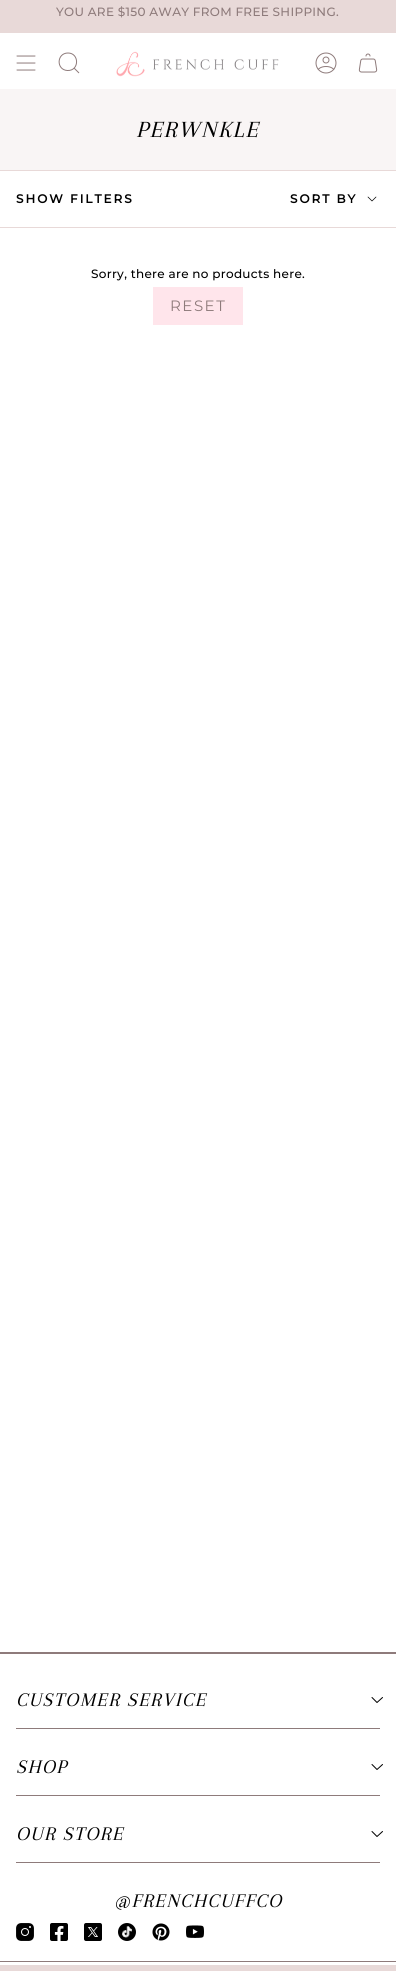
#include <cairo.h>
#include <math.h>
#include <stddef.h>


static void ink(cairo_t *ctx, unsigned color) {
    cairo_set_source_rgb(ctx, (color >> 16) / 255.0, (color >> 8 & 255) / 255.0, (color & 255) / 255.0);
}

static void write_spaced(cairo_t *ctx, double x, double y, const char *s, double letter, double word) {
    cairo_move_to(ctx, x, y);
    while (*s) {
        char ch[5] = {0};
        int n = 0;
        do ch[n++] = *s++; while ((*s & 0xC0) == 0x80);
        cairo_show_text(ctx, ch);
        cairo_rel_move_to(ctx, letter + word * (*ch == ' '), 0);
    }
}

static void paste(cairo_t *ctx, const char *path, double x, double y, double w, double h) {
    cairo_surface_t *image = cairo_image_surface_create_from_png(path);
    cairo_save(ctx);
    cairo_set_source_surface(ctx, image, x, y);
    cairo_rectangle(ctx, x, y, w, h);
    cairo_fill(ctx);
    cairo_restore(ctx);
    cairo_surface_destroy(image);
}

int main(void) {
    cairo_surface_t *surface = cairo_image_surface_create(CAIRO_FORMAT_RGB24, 396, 1971);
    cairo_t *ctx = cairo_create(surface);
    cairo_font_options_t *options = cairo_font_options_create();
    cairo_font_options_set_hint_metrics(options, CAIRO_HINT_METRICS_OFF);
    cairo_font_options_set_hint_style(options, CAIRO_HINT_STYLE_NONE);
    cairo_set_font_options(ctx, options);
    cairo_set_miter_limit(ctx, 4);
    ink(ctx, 0xFFFFFF);
    cairo_paint(ctx);
    ink(ctx, 0xE8D9D8);
    cairo_rectangle(ctx, 0, 0, 396, 33);
    cairo_fill(ctx);
    cairo_select_font_face(ctx, "Montserrat Medium", CAIRO_FONT_SLANT_NORMAL, CAIRO_FONT_WEIGHT_NORMAL);
    cairo_set_font_size(ctx, 12);
    ink(ctx, 0x8E7B7B);
    write_spaced(ctx, 56, 16, "YOU ARE $150 AWAY FROM FREE SHIPPING.", 0.3, 0);
    cairo_new_path(ctx);
    cairo_move_to(ctx, 17, 56);
    cairo_line_to(ctx, 35, 56);
    cairo_move_to(ctx, 17, 63);
    cairo_line_to(ctx, 35, 63);
    cairo_move_to(ctx, 17, 70);
    cairo_line_to(ctx, 35, 70);
    cairo_set_line_width(ctx, 1);
    cairo_set_line_cap(ctx, CAIRO_LINE_CAP_ROUND);
    cairo_set_line_join(ctx, CAIRO_LINE_JOIN_ROUND);
    cairo_stroke(ctx);
    cairo_new_path(ctx);
    cairo_move_to(ctx, 68, 53);
    cairo_curve_to(ctx, 79.5, 53, 79.5, 71, 67.5, 70.5);
    cairo_curve_to(ctx, 56, 70, 56.5, 53, 68, 53);
    cairo_close_path(ctx);
    cairo_move_to(ctx, 74, 68);
    cairo_line_to(ctx, 79, 73);
    cairo_set_line_cap(ctx, CAIRO_LINE_CAP_BUTT);
    cairo_set_line_join(ctx, CAIRO_LINE_JOIN_MITER);
    cairo_stroke(ctx);
    paste(ctx, "media/1.png", 116, 51, 163, 26);
    paste(ctx, "media/2.png", 315, 52, 22, 22);
    paste(ctx, "media/3.png", 358, 53, 20, 20);
    ink(ctx, 0xF9F5F5);
    cairo_rectangle(ctx, 0, 89, 396, 81);
    cairo_fill(ctx);
    cairo_select_font_face(ctx, "Arapey", CAIRO_FONT_SLANT_ITALIC, CAIRO_FONT_WEIGHT_NORMAL);
    cairo_set_font_size(ctx, 24);
    ink(ctx, 0x000000);
    write_spaced(ctx, 136, 137, "PERWNKLE", 1.75, 0);
    ink(ctx, 0xE8D9D8);
    cairo_rectangle(ctx, 0, 170, 396, 1);
    cairo_fill(ctx);
    cairo_rectangle(ctx, 0, 227, 396, 1);
    cairo_fill(ctx);
    cairo_select_font_face(ctx, "Montserrat", CAIRO_FONT_SLANT_NORMAL, CAIRO_FONT_WEIGHT_BOLD);
    cairo_set_font_size(ctx, 12);
    ink(ctx, 0x000000);
    write_spaced(ctx, 16, 203, "SHOW FILTERS", 2, 0);
    write_spaced(ctx, 290, 203, "SORT BY", 2, 0);
    cairo_new_path(ctx);
    cairo_move_to(ctx, 368, 197);
    cairo_line_to(ctx, 372, 201);
    cairo_line_to(ctx, 376, 197);
    cairo_set_line_width(ctx, 0.7);
    cairo_set_line_cap(ctx, CAIRO_LINE_CAP_ROUND);
    cairo_set_line_join(ctx, CAIRO_LINE_JOIN_ROUND);
    cairo_stroke(ctx);
    cairo_select_font_face(ctx, "Montserrat Medium", CAIRO_FONT_SLANT_NORMAL, CAIRO_FONT_WEIGHT_NORMAL);
    write_spaced(ctx, 91, 278, "Sorry, there are no products here.", 0.3, 0);
    ink(ctx, 0xFFE5EB);
    cairo_rectangle(ctx, 153, 287, 90, 38);
    cairo_fill(ctx);
    cairo_select_font_face(ctx, "Montserrat", CAIRO_FONT_SLANT_NORMAL, CAIRO_FONT_WEIGHT_NORMAL);
    cairo_set_font_size(ctx, 15);
    ink(ctx, 0x8E7B7B);
    write_spaced(ctx, 170, 311, "RESET", 1.5, 0);
    cairo_rectangle(ctx, 0, 1652, 396, 2);
    cairo_fill(ctx);
    cairo_select_font_face(ctx, "Arapey", CAIRO_FONT_SLANT_ITALIC, CAIRO_FONT_WEIGHT_NORMAL);
    cairo_set_font_size(ctx, 20);
    ink(ctx, 0x000000);
    write_spaced(ctx, 16, 1706, "CUSTOMER SERVICE", 1.5, 0);
    cairo_new_path(ctx);
    cairo_move_to(ctx, 382.5, 1697.5);
    cairo_line_to(ctx, 377, 1702.5);
    cairo_line_to(ctx, 372, 1697.5);
    cairo_set_line_width(ctx, 1);
    cairo_stroke(ctx);
    ink(ctx, 0x8E7B7B);
    cairo_rectangle(ctx, 16, 1728, 364, 1);
    cairo_fill(ctx);
    ink(ctx, 0x000000);
    write_spaced(ctx, 16, 1773, "SHOP", 1.5, 0);
    cairo_new_path(ctx);
    cairo_move_to(ctx, 382.5, 1764.5);
    cairo_line_to(ctx, 377, 1769.5);
    cairo_line_to(ctx, 372, 1764.5);
    cairo_stroke(ctx);
    ink(ctx, 0x8E7B7B);
    cairo_rectangle(ctx, 16, 1795, 364, 1);
    cairo_fill(ctx);
    ink(ctx, 0x000000);
    write_spaced(ctx, 16, 1840, "OUR STORE", 1.5, 0);
    cairo_new_path(ctx);
    cairo_move_to(ctx, 382.5, 1831.5);
    cairo_line_to(ctx, 377, 1836.5);
    cairo_line_to(ctx, 372, 1831.5);
    cairo_stroke(ctx);
    ink(ctx, 0x8E7B7B);
    cairo_rectangle(ctx, 16, 1862, 364, 1);
    cairo_fill(ctx);
    ink(ctx, 0x000000);
    write_spaced(ctx, 114, 1907, "@FRENCHCUFFCO", 1.5, 0);
    paste(ctx, "media/4.png", 16, 1923, 18, 18);
    paste(ctx, "media/5.png", 50, 1923, 18, 18);
    paste(ctx, "media/6.png", 84, 1923, 18, 18);
    paste(ctx, "media/7.png", 118, 1923, 18, 18);
    paste(ctx, "media/8.png", 152, 1923, 18, 18);
    paste(ctx, "media/9.png", 186, 1925, 18, 13);
    ink(ctx, 0xE8D9D8);
    cairo_rectangle(ctx, 0, 1965, 396, 6);
    cairo_fill(ctx);
    ink(ctx, 0x8E7B7B);
    cairo_rectangle(ctx, 0, 1961, 396, 1);
    cairo_fill(ctx);
    cairo_surface_write_to_png(surface, "image.png");
    cairo_font_options_destroy(options);
    cairo_destroy(ctx);
    cairo_surface_destroy(surface);
    return 0;
}
